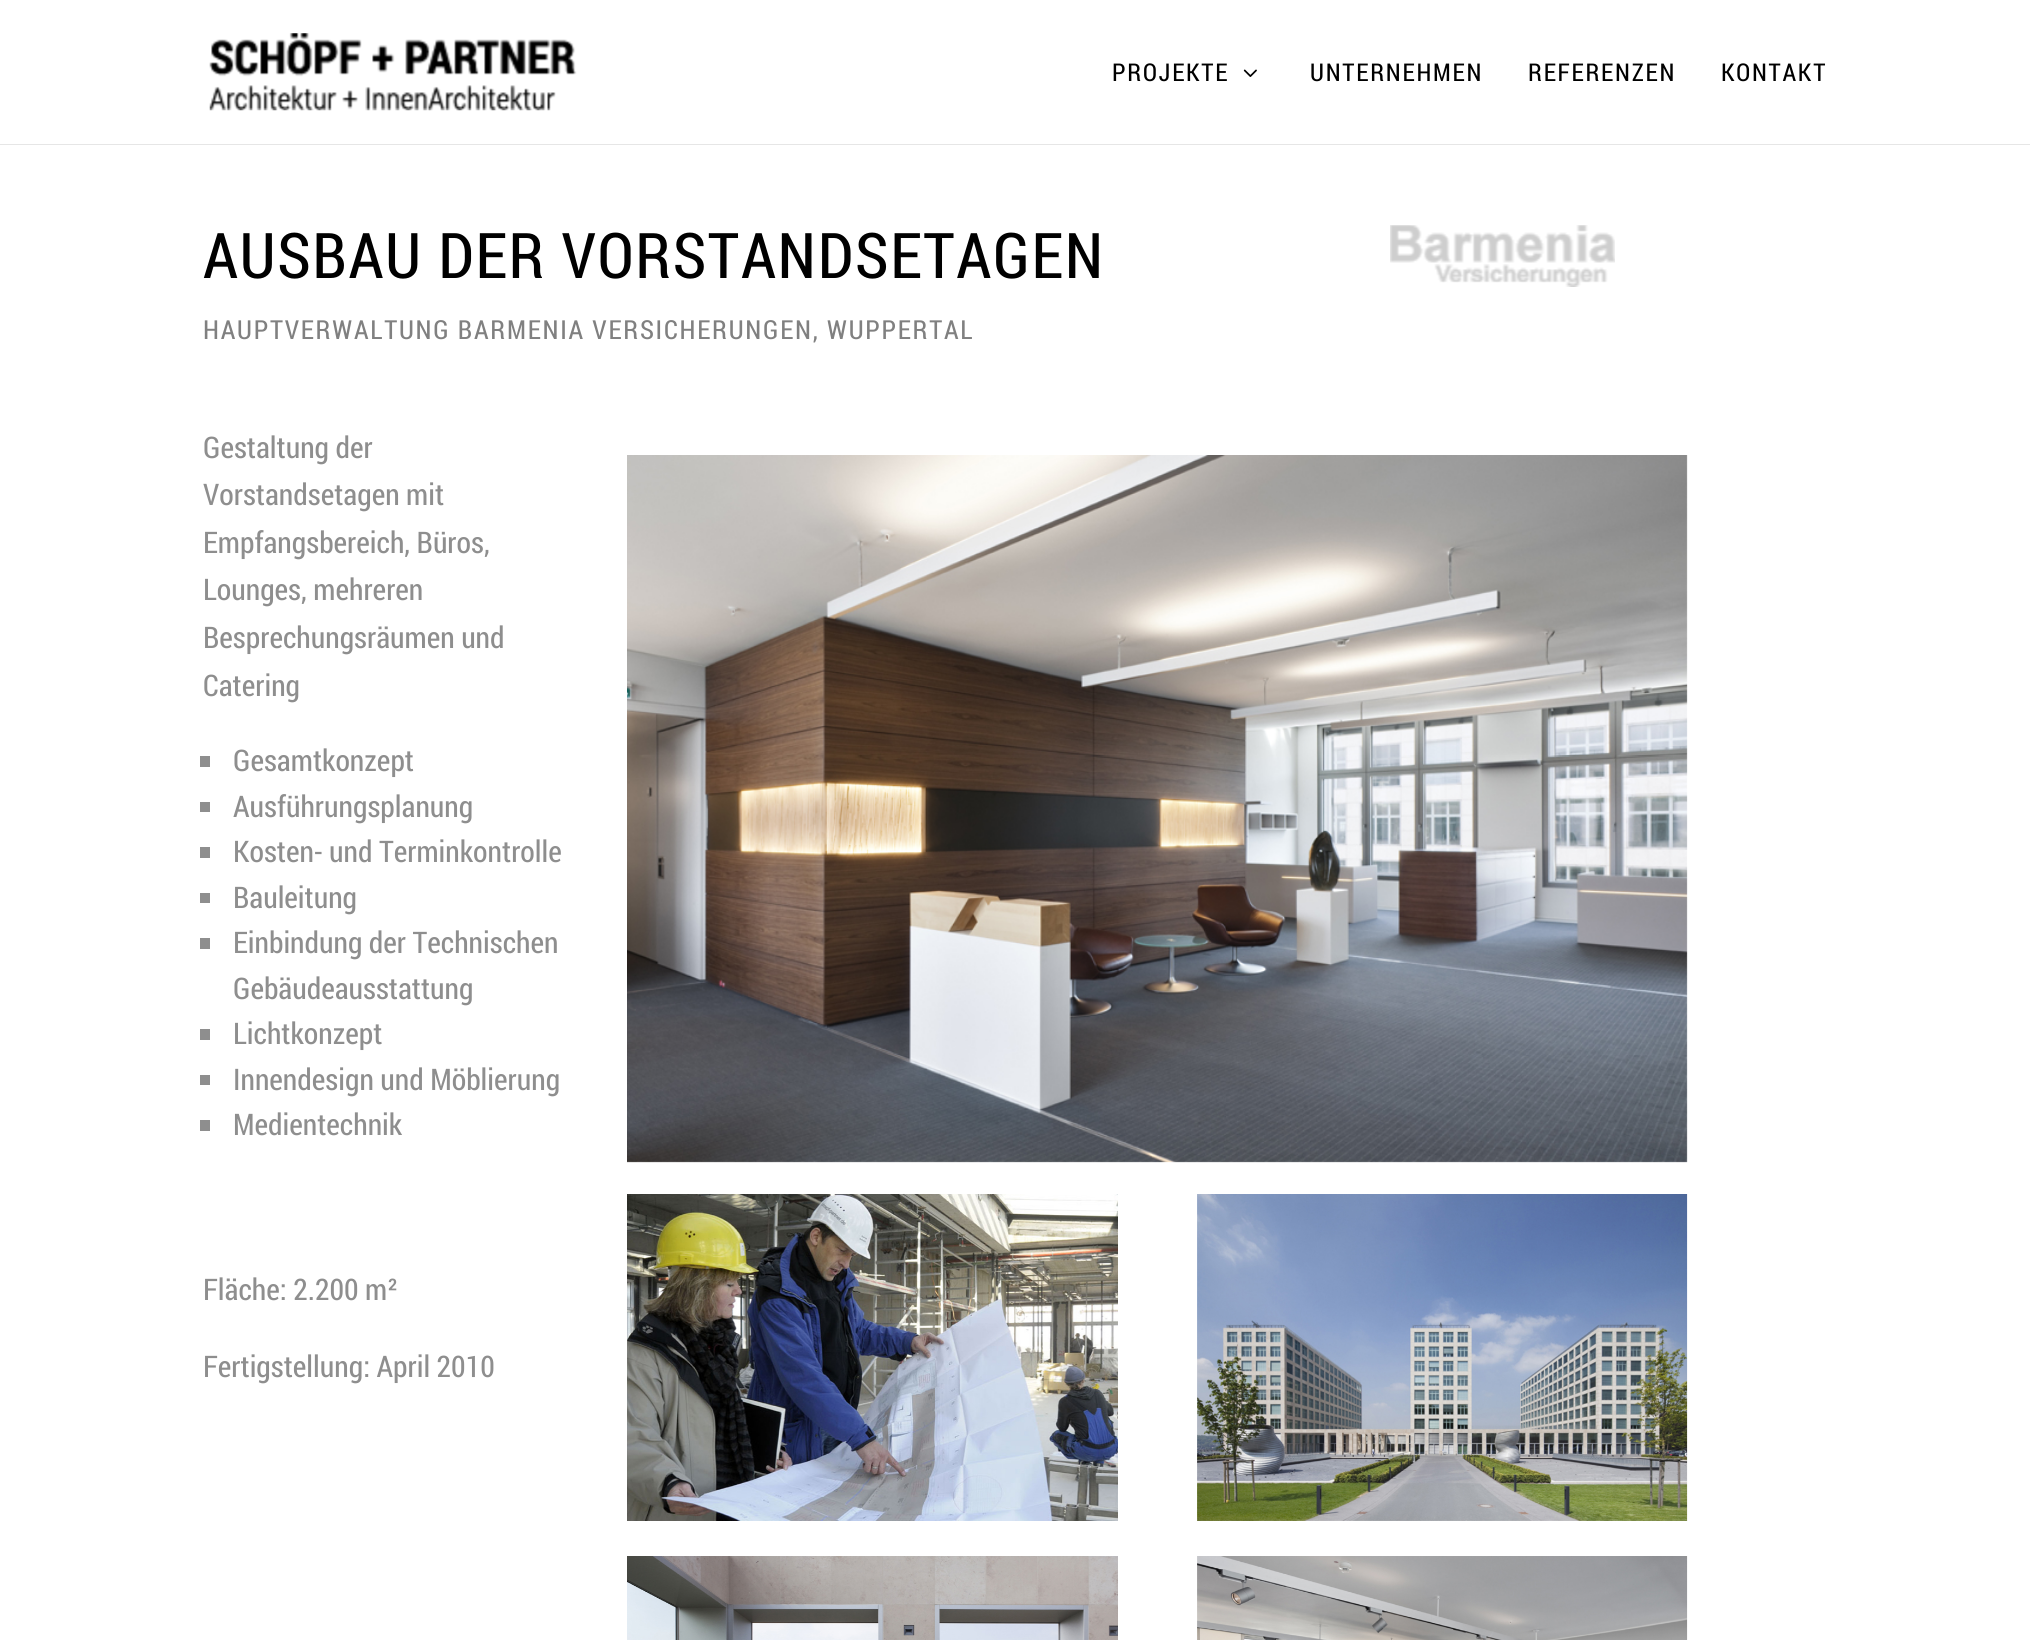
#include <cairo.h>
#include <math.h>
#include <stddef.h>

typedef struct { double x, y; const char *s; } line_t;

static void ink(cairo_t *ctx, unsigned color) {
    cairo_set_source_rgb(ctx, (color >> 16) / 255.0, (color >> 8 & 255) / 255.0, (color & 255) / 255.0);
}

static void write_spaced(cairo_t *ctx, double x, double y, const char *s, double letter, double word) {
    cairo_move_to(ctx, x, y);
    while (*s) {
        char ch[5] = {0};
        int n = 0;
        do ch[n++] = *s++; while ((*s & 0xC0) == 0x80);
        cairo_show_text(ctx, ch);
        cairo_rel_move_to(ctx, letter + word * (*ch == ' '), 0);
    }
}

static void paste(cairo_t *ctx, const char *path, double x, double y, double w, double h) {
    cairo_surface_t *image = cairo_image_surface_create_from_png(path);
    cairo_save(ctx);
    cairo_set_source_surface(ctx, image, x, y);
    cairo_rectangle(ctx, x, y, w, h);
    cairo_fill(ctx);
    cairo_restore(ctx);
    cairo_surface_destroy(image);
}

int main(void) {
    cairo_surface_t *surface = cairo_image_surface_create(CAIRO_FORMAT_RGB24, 2030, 1640);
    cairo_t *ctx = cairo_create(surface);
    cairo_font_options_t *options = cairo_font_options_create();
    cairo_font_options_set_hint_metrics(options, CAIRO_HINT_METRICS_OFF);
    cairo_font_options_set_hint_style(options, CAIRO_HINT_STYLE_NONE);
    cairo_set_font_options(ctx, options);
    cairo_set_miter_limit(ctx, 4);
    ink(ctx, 0xFFFFFF);
    cairo_paint(ctx);
    ink(ctx, 0xE6E6E6);
    cairo_rectangle(ctx, 0, 144, 2030, 1);
    cairo_fill(ctx);
    paste(ctx, "media/1.png", 209, 33, 368, 78);
    cairo_select_font_face(ctx, "Roboto Condensed", CAIRO_FONT_SLANT_NORMAL, CAIRO_FONT_WEIGHT_NORMAL);
    cairo_set_font_size(ctx, 24.5);
    ink(ctx, 0x000000);
    write_spaced(ctx, 1112, 81, "PROJEKTE", 1.75, 0);
    paste(ctx, "media/2.png", 1243, 69, 14, 8);
    {
        static const line_t items[] = {
            {1310, 81, "UNTERNEHMEN"},
            {1528, 81, "REFERENZEN"},
            {1721, 81, "KONTAKT"},
        };
        for (size_t i = 0; i < sizeof items / sizeof *items; i++) {
            write_spaced(ctx, items[i].x, items[i].y, items[i].s, 1.75, 0);
        }
    }
    cairo_set_font_size(ctx, 63);
    write_spaced(ctx, 203, 278, "AUSBAU DER VORSTANDSETAGEN", 1.75, 0);
    cairo_set_font_size(ctx, 26.25);
    ink(ctx, 0x808080);
    write_spaced(ctx, 203, 339, "HAUPTVERWALTUNG BARMENIA VERSICHERUNGEN, WUPPERTAL", 1.75, 0);
    paste(ctx, "media/3.png", 1390, 225, 225, 62);
    cairo_set_font_size(ctx, 29.75);
    ink(ctx, 0x8E8E8E);
    {
        static const line_t items[] = {
            {203, 458, "Gestaltung der"},
            {203, 505, "Vorstandsetagen mit"},
            {203, 553, "Empfangsbereich, Büros,"},
            {203, 600, "Lounges, mehreren"},
            {203, 648, "Besprechungsräumen und"},
            {203, 696, "Catering"},
        };
        for (size_t i = 0; i < sizeof items / sizeof *items; i++) {
            cairo_move_to(ctx, items[i].x, items[i].y);
            cairo_show_text(ctx, items[i].s);
        }
    }
    cairo_rectangle(ctx, 200, 756, 10, 11);
    cairo_fill(ctx);
    cairo_move_to(ctx, 233, 771);
    cairo_show_text(ctx, "Gesamtkonzept");
    cairo_rectangle(ctx, 200, 802, 10, 10);
    cairo_fill(ctx);
    cairo_move_to(ctx, 233, 817);
    cairo_show_text(ctx, "Ausführungsplanung");
    cairo_rectangle(ctx, 200, 847, 10, 11);
    cairo_fill(ctx);
    cairo_move_to(ctx, 233, 862);
    cairo_show_text(ctx, "Kosten- und Terminkontrolle");
    cairo_rectangle(ctx, 200, 893, 10, 10);
    cairo_fill(ctx);
    cairo_move_to(ctx, 233, 908);
    cairo_show_text(ctx, "Bauleitung");
    cairo_rectangle(ctx, 200, 938, 10, 11);
    cairo_fill(ctx);
    cairo_move_to(ctx, 233, 953);
    cairo_show_text(ctx, "Einbindung der Technischen");
    cairo_move_to(ctx, 233, 999);
    cairo_show_text(ctx, "Gebäudeausstattung");
    cairo_rectangle(ctx, 200, 1029, 10, 11);
    cairo_fill(ctx);
    cairo_move_to(ctx, 233, 1044);
    cairo_show_text(ctx, "Lichtkonzept");
    cairo_rectangle(ctx, 200, 1075, 10, 10);
    cairo_fill(ctx);
    cairo_move_to(ctx, 233, 1090);
    cairo_show_text(ctx, "Innendesign und Möblierung");
    cairo_rectangle(ctx, 200, 1120, 10, 11);
    cairo_fill(ctx);
    {
        static const line_t items[] = {
            {233, 1135, "Medientechnik"},
            {203, 1300, "Fläche: 2.200 m²"},
            {203, 1377, "Fertigstellung: April 2010"},
        };
        for (size_t i = 0; i < sizeof items / sizeof *items; i++) {
            cairo_move_to(ctx, items[i].x, items[i].y);
            cairo_show_text(ctx, items[i].s);
        }
    }
    paste(ctx, "media/4.png", 627, 455, 1061, 708);
    paste(ctx, "media/5.png", 627, 1194, 491, 327);
    paste(ctx, "media/6.png", 1197, 1194, 491, 327);
    paste(ctx, "media/7.png", 627, 1556, 491, 84);
    paste(ctx, "media/8.png", 1197, 1556, 491, 84);
    cairo_surface_write_to_png(surface, "image.png");
    cairo_font_options_destroy(options);
    cairo_destroy(ctx);
    cairo_surface_destroy(surface);
    return 0;
}
